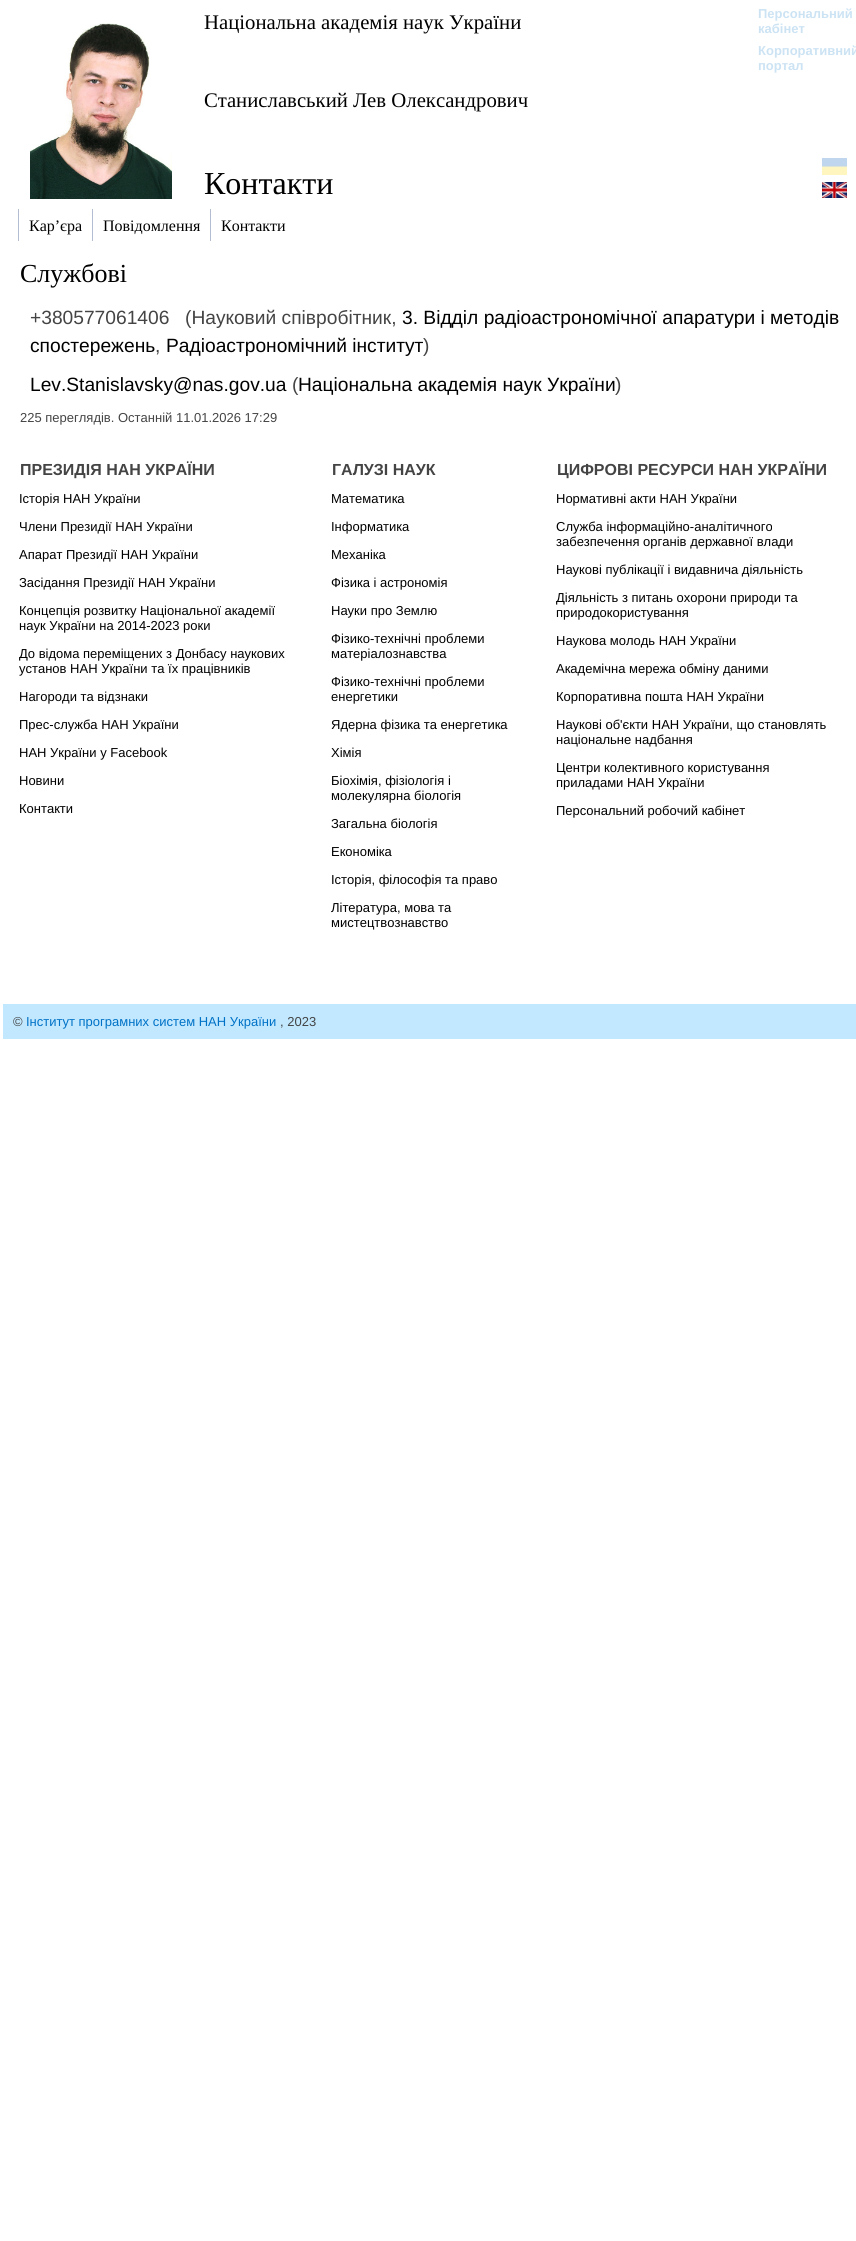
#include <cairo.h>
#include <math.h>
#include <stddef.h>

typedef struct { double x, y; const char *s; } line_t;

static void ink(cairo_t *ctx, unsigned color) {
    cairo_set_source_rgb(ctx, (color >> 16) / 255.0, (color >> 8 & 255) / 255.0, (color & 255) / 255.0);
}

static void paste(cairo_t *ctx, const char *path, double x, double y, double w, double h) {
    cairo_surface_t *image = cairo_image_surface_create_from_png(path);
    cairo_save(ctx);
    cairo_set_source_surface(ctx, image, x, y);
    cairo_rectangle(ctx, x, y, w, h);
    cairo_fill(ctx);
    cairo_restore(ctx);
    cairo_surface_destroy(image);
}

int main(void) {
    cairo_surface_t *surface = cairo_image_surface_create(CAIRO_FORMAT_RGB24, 856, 2241);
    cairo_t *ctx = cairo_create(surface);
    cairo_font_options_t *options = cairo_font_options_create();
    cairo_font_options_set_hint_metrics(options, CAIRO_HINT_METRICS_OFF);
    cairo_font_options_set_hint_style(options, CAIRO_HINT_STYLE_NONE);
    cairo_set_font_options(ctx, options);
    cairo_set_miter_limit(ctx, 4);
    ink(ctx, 0xFFFFFF);
    cairo_paint(ctx);
    paste(ctx, "media/1.png", 30, 23, 142, 176);
    cairo_select_font_face(ctx, "Liberation Serif", CAIRO_FONT_SLANT_NORMAL, CAIRO_FONT_WEIGHT_NORMAL);
    cairo_set_font_size(ctx, 20.75);
    ink(ctx, 0x000000);
    cairo_move_to(ctx, 204, 29);
    cairo_show_text(ctx, "Національна академія наук України");
    cairo_select_font_face(ctx, "Liberation Sans", CAIRO_FONT_SLANT_NORMAL, CAIRO_FONT_WEIGHT_BOLD);
    cairo_set_font_size(ctx, 13);
    ink(ctx, 0xCCE3F4);
    {
        static const line_t items[] = {
            {758, 18, "Персональний"},
            {758, 33, "кабінет"},
            {758, 55, "Корпоративний"},
            {758, 70, "портал"},
        };
        for (size_t i = 0; i < sizeof items / sizeof *items; i++) {
            cairo_move_to(ctx, items[i].x, items[i].y);
            cairo_show_text(ctx, items[i].s);
        }
    }
    cairo_select_font_face(ctx, "Liberation Serif", CAIRO_FONT_SLANT_NORMAL, CAIRO_FONT_WEIGHT_NORMAL);
    cairo_set_font_size(ctx, 20.75);
    ink(ctx, 0x000000);
    cairo_move_to(ctx, 204, 107);
    cairo_show_text(ctx, "Станиславський Лев Олександрович");
    paste(ctx, "media/2.png", 822, 158, 25, 17);
    paste(ctx, "media/3.png", 822, 182, 25, 16);
    cairo_set_font_size(ctx, 32);
    cairo_move_to(ctx, 204, 194);
    cairo_show_text(ctx, "Контакти");
    ink(ctx, 0xB2BDD3);
    cairo_rectangle(ctx, 18, 209, 1, 32);
    cairo_fill(ctx);
    cairo_set_font_size(ctx, 16);
    ink(ctx, 0x000000);
    cairo_move_to(ctx, 29, 231);
    cairo_show_text(ctx, "Кар’єра");
    ink(ctx, 0xB2BDD3);
    cairo_rectangle(ctx, 92, 209, 1, 32);
    cairo_fill(ctx);
    ink(ctx, 0x000000);
    cairo_move_to(ctx, 103, 231);
    cairo_show_text(ctx, "Повідомлення");
    ink(ctx, 0xB2BDD3);
    cairo_rectangle(ctx, 210, 209, 1, 32);
    cairo_fill(ctx);
    ink(ctx, 0x000000);
    cairo_move_to(ctx, 221, 231);
    cairo_show_text(ctx, "Контакти");
    cairo_set_font_size(ctx, 26);
    cairo_move_to(ctx, 20, 282);
    cairo_show_text(ctx, "Службові");
    cairo_select_font_face(ctx, "Liberation Sans", CAIRO_FONT_SLANT_NORMAL, CAIRO_FONT_WEIGHT_NORMAL);
    cairo_set_font_size(ctx, 19.2);
    ink(ctx, 0x444444);
    cairo_move_to(ctx, 30, 324);
    cairo_show_text(ctx, "+380577061406");
    cairo_move_to(ctx, 185, 324);
    cairo_show_text(ctx, "(Науковий співробітник,");
    ink(ctx, 0x000000);
    cairo_move_to(ctx, 402, 324);
    cairo_show_text(ctx, "3. Відділ радіоастрономічної апаратури і методів");
    cairo_move_to(ctx, 30, 352);
    cairo_show_text(ctx, "спостережень");
    ink(ctx, 0x444444);
    cairo_move_to(ctx, 155, 352);
    cairo_show_text(ctx, ",");
    ink(ctx, 0x000000);
    cairo_move_to(ctx, 166, 352);
    cairo_show_text(ctx, "Радіоастрономічний інститут");
    ink(ctx, 0x444444);
    cairo_move_to(ctx, 423, 352);
    cairo_show_text(ctx, ")");
    ink(ctx, 0x000000);
    cairo_move_to(ctx, 30, 391);
    cairo_show_text(ctx, "Lev.Stanislavsky@nas.gov.ua");
    ink(ctx, 0x444444);
    cairo_move_to(ctx, 292, 391);
    cairo_show_text(ctx, "(");
    ink(ctx, 0x000000);
    cairo_move_to(ctx, 298, 391);
    cairo_show_text(ctx, "Національна академія наук України");
    ink(ctx, 0x444444);
    cairo_move_to(ctx, 615, 391);
    cairo_show_text(ctx, ")");
    cairo_set_font_size(ctx, 13);
    cairo_move_to(ctx, 20, 422);
    cairo_show_text(ctx, "225 переглядів. Останній 11.01.2026 17:29");
    cairo_select_font_face(ctx, "Liberation Sans", CAIRO_FONT_SLANT_NORMAL, CAIRO_FONT_WEIGHT_BOLD);
    cairo_set_font_size(ctx, 16);
    cairo_move_to(ctx, 20, 475);
    cairo_show_text(ctx, "ПРЕЗИДІЯ НАН УКРАЇНИ");
    cairo_select_font_face(ctx, "Liberation Sans", CAIRO_FONT_SLANT_NORMAL, CAIRO_FONT_WEIGHT_NORMAL);
    cairo_set_font_size(ctx, 13);
    ink(ctx, 0x000000);
    {
        static const line_t items[] = {
            {19, 503, "Історія НАН України"},
            {19, 531, "Члени Президії НАН України"},
            {19, 559, "Апарат Президії НАН України"},
            {19, 587, "Засідання Президії НАН України"},
            {19, 615, "Концепція розвитку Національної академії"},
            {19, 630, "наук України на 2014-2023 роки"},
            {19, 658, "До відома переміщених з Донбасу наукових"},
            {19, 673, "установ НАН України та їх працівників"},
            {19, 701, "Нагороди та відзнаки"},
            {19, 729, "Прес-служба НАН України"},
            {19, 757, "НАН України у Facebook"},
            {19, 785, "Новини"},
            {19, 813, "Контакти"},
        };
        for (size_t i = 0; i < sizeof items / sizeof *items; i++) {
            cairo_move_to(ctx, items[i].x, items[i].y);
            cairo_show_text(ctx, items[i].s);
        }
    }
    cairo_select_font_face(ctx, "Liberation Sans", CAIRO_FONT_SLANT_NORMAL, CAIRO_FONT_WEIGHT_BOLD);
    cairo_set_font_size(ctx, 16);
    ink(ctx, 0x444444);
    cairo_move_to(ctx, 332, 475);
    cairo_show_text(ctx, "ГАЛУЗІ НАУК");
    cairo_select_font_face(ctx, "Liberation Sans", CAIRO_FONT_SLANT_NORMAL, CAIRO_FONT_WEIGHT_NORMAL);
    cairo_set_font_size(ctx, 13);
    ink(ctx, 0x000000);
    {
        static const line_t items[] = {
            {331, 503, "Математика"},
            {331, 531, "Інформатика"},
            {331, 559, "Механіка"},
            {331, 587, "Фізика і астрономія"},
            {331, 615, "Науки про Землю"},
            {331, 643, "Фізико-технічні проблеми"},
            {331, 658, "матеріалознавства"},
            {331, 686, "Фізико-технічні проблеми"},
            {331, 701, "енергетики"},
            {331, 729, "Ядерна фізика та енергетика"},
            {331, 757, "Хімія"},
            {331, 785, "Біохімія, фізіологія і"},
            {331, 800, "молекулярна біологія"},
            {331, 828, "Загальна біологія"},
            {331, 856, "Економіка"},
            {331, 884, "Історія, філософія та право"},
            {331, 912, "Література, мова та"},
            {331, 927, "мистецтвознавство"},
        };
        for (size_t i = 0; i < sizeof items / sizeof *items; i++) {
            cairo_move_to(ctx, items[i].x, items[i].y);
            cairo_show_text(ctx, items[i].s);
        }
    }
    cairo_select_font_face(ctx, "Liberation Sans", CAIRO_FONT_SLANT_NORMAL, CAIRO_FONT_WEIGHT_BOLD);
    cairo_set_font_size(ctx, 16);
    ink(ctx, 0x444444);
    cairo_move_to(ctx, 557, 475);
    cairo_show_text(ctx, "ЦИФРОВІ РЕСУРСИ НАН УКРАЇНИ");
    cairo_select_font_face(ctx, "Liberation Sans", CAIRO_FONT_SLANT_NORMAL, CAIRO_FONT_WEIGHT_NORMAL);
    cairo_set_font_size(ctx, 13);
    ink(ctx, 0x000000);
    {
        static const line_t items[] = {
            {556, 503, "Нормативні акти НАН України"},
            {556, 531, "Служба інформаційно-аналітичного"},
            {556, 546, "забезпечення органів державної влади"},
            {556, 574, "Наукові публікації і видавнича діяльність"},
            {556, 602, "Діяльність з питань охорони природи та"},
            {556, 617, "природокористування"},
            {556, 645, "Наукова молодь НАН України"},
            {556, 673, "Академічна мережа обміну даними"},
            {556, 701, "Корпоративна пошта НАН України"},
            {556, 729, "Наукові об'єкти НАН України, що становлять"},
            {556, 744, "національне надбання"},
            {556, 772, "Центри колективного користування"},
            {556, 787, "приладами НАН України"},
            {556, 815, "Персональний робочий кабінет"},
        };
        for (size_t i = 0; i < sizeof items / sizeof *items; i++) {
            cairo_move_to(ctx, items[i].x, items[i].y);
            cairo_show_text(ctx, items[i].s);
        }
    }
    ink(ctx, 0xC1E8FF);
    cairo_rectangle(ctx, 3, 1004, 853, 35);
    cairo_fill(ctx);
    ink(ctx, 0x444444);
    cairo_move_to(ctx, 13, 1026);
    cairo_show_text(ctx, "©");
    ink(ctx, 0x0072C6);
    cairo_move_to(ctx, 26, 1026);
    cairo_show_text(ctx, "Інститут програмних систем НАН України");
    ink(ctx, 0x444444);
    cairo_move_to(ctx, 280, 1026);
    cairo_show_text(ctx, ", 2023");
    cairo_surface_write_to_png(surface, "image.png");
    cairo_font_options_destroy(options);
    cairo_destroy(ctx);
    cairo_surface_destroy(surface);
    return 0;
}
